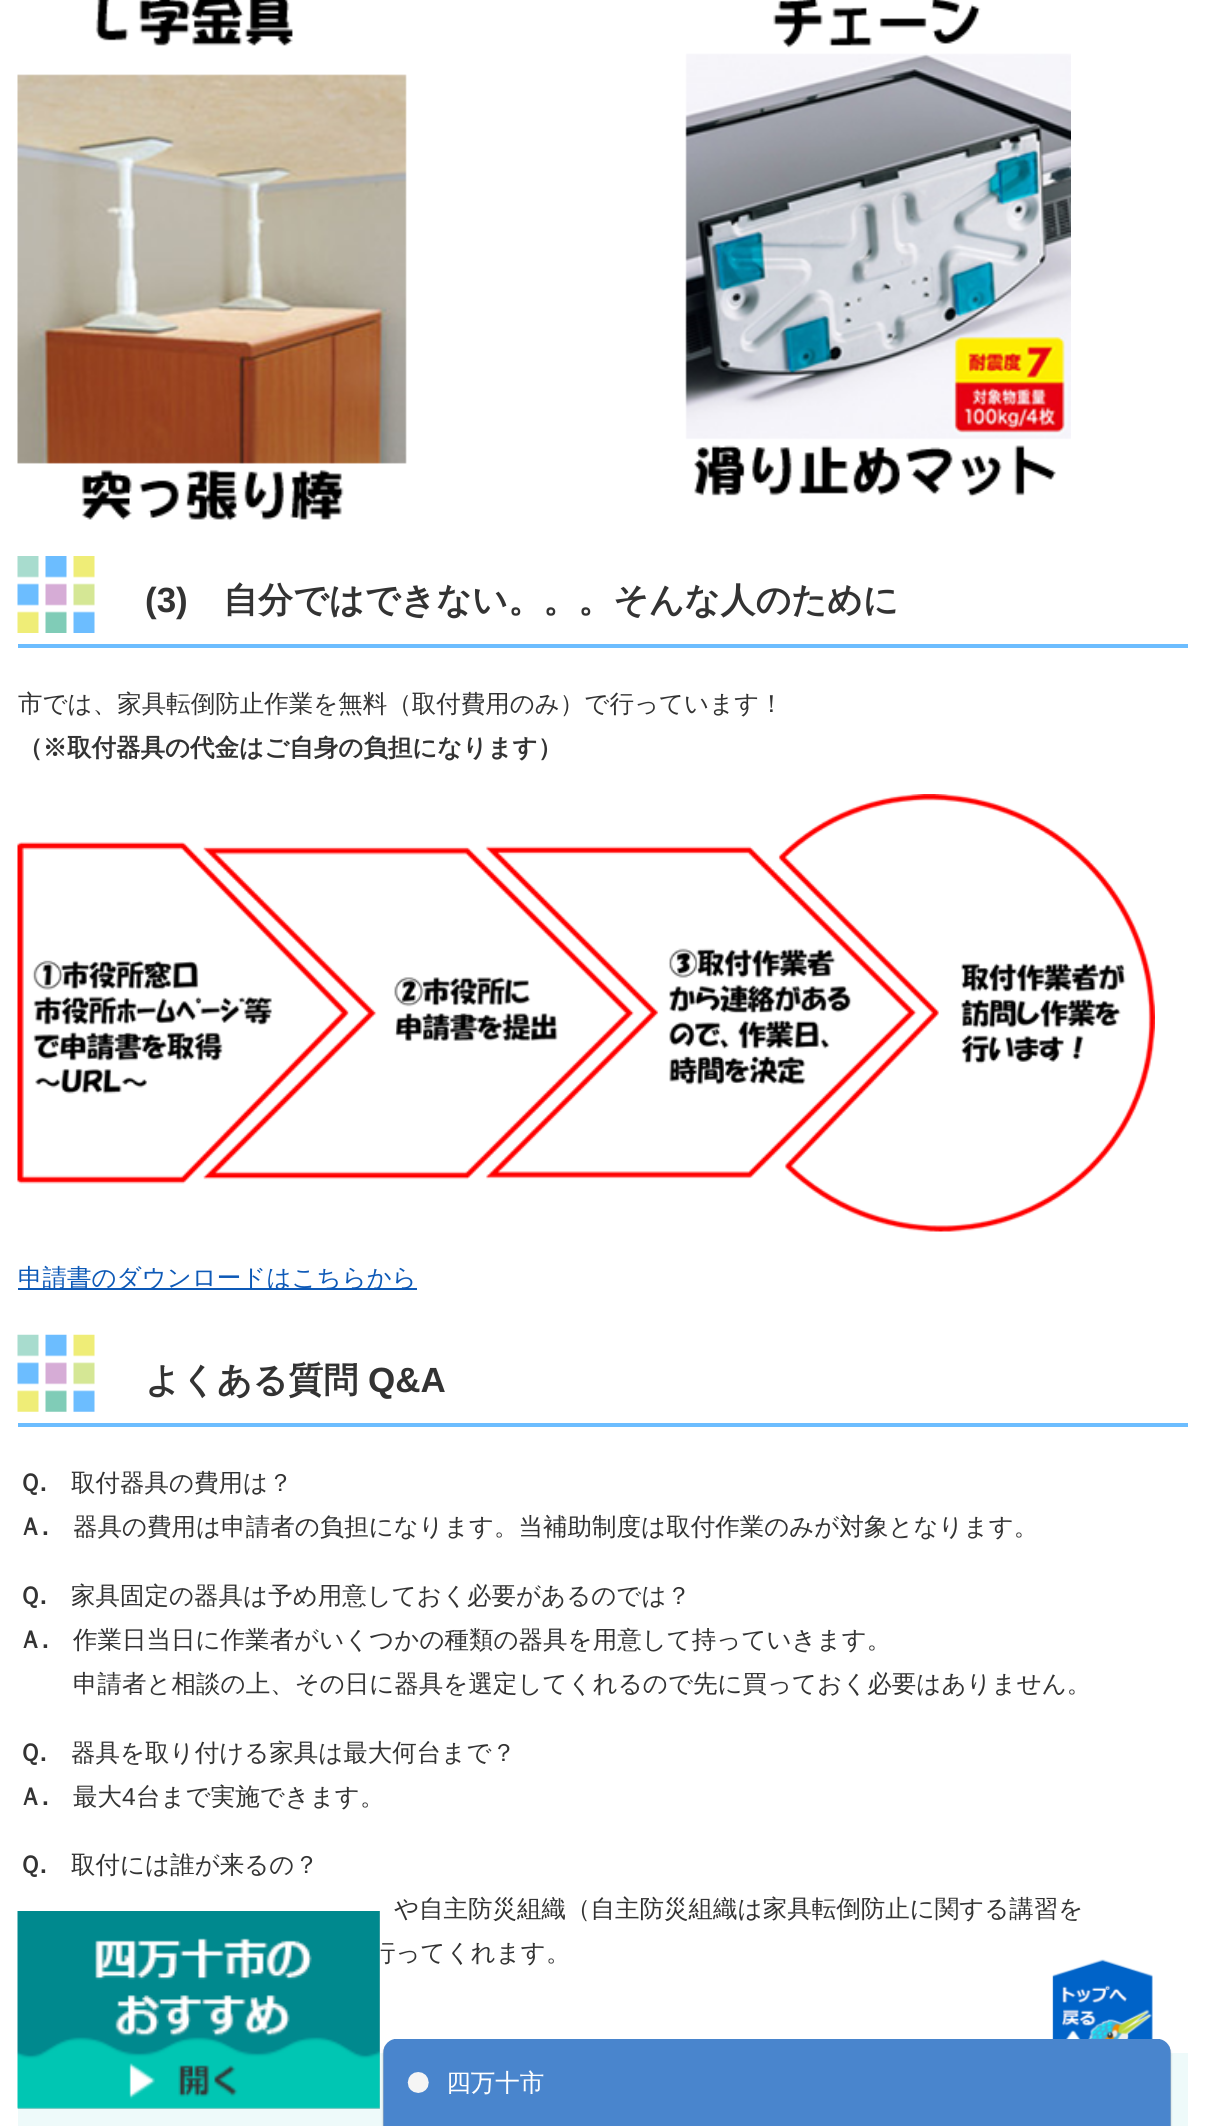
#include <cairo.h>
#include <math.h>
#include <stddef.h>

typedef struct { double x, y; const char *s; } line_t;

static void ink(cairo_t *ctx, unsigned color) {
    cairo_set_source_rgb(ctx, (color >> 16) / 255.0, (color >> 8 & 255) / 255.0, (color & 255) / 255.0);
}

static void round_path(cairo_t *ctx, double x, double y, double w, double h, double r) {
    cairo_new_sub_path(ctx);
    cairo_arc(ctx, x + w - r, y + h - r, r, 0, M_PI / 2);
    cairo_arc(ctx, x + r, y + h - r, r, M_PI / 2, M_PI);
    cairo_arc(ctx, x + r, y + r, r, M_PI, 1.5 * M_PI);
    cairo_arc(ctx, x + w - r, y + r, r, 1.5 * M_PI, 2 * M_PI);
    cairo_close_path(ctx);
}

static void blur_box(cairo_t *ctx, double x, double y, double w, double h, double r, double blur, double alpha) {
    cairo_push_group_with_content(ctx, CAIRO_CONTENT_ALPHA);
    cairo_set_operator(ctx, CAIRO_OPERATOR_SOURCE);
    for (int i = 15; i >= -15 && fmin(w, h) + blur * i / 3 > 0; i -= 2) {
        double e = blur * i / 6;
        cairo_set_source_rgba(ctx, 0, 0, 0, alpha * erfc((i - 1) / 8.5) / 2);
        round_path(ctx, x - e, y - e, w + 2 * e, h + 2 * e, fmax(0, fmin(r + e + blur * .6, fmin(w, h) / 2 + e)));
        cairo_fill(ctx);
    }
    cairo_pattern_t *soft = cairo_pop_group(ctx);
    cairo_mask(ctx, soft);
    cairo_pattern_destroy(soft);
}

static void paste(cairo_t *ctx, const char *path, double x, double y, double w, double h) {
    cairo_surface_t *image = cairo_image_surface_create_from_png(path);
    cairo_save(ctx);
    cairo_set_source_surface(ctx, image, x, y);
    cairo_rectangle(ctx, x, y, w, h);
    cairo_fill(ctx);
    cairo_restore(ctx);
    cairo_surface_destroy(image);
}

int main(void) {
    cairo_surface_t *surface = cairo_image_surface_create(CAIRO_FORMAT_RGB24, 1205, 2126);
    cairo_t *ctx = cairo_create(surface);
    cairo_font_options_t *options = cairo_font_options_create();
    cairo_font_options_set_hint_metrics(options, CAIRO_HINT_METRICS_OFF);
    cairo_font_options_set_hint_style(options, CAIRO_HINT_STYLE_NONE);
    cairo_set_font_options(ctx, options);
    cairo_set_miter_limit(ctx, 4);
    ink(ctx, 0xFFFFFF);
    cairo_paint(ctx);
    paste(ctx, "media/1.png", 17, 0, 1054, 521);
    paste(ctx, "media/2.png", 17, 556, 78, 77);
    ink(ctx, 0x6CBDFF);
    cairo_rectangle(ctx, 18, 644, 1170, 4);
    cairo_fill(ctx);
    cairo_select_font_face(ctx, "Liberation Sans", CAIRO_FONT_SLANT_NORMAL, CAIRO_FONT_WEIGHT_BOLD);
    cairo_set_font_size(ctx, 35);
    ink(ctx, 0x333333);
    cairo_move_to(ctx, 145, 612);
    cairo_show_text(ctx, "(3)");
    cairo_select_font_face(ctx, "WenQuanYi Zen Hei", CAIRO_FONT_SLANT_NORMAL, CAIRO_FONT_WEIGHT_BOLD);
    cairo_move_to(ctx, 223, 612);
    cairo_show_text(ctx, "自分ではできない。。。そんな人のために");
    cairo_select_font_face(ctx, "WenQuanYi Zen Hei Medium", CAIRO_FONT_SLANT_NORMAL, CAIRO_FONT_WEIGHT_NORMAL);
    cairo_set_font_size(ctx, 24.5);
    cairo_move_to(ctx, 18, 712);
    cairo_show_text(ctx, "市では、家具転倒防止作業を無料（取付費用のみ）で行っています！");
    cairo_select_font_face(ctx, "WenQuanYi Zen Hei", CAIRO_FONT_SLANT_NORMAL, CAIRO_FONT_WEIGHT_BOLD);
    cairo_move_to(ctx, 18, 756);
    cairo_show_text(ctx, "（※取付器具の代金はご自身の負担になります）");
    paste(ctx, "media/3.png", 17, 794, 1138, 438);
    ink(ctx, 0x0D59B7);
    cairo_rectangle(ctx, 18, 1288, 399, 2);
    cairo_fill(ctx);
    cairo_select_font_face(ctx, "WenQuanYi Zen Hei Medium", CAIRO_FONT_SLANT_NORMAL, CAIRO_FONT_WEIGHT_NORMAL);
    cairo_move_to(ctx, 18, 1286);
    cairo_show_text(ctx, "申請書のダウンロードはこちらから");
    paste(ctx, "media/4.png", 17, 1334, 78, 78);
    ink(ctx, 0x6CBDFF);
    cairo_rectangle(ctx, 18, 1423, 1170, 4);
    cairo_fill(ctx);
    cairo_select_font_face(ctx, "WenQuanYi Zen Hei", CAIRO_FONT_SLANT_NORMAL, CAIRO_FONT_WEIGHT_BOLD);
    cairo_set_font_size(ctx, 35);
    ink(ctx, 0x333333);
    cairo_move_to(ctx, 145, 1392);
    cairo_show_text(ctx, "よくある質問");
    cairo_select_font_face(ctx, "Liberation Sans", CAIRO_FONT_SLANT_NORMAL, CAIRO_FONT_WEIGHT_BOLD);
    cairo_move_to(ctx, 368, 1392);
    cairo_show_text(ctx, "Q&A");
    cairo_select_font_face(ctx, "WenQuanYi Zen Hei", CAIRO_FONT_SLANT_NORMAL, CAIRO_FONT_WEIGHT_BOLD);
    cairo_set_font_size(ctx, 24.5);
    cairo_move_to(ctx, 18, 1491);
    cairo_show_text(ctx, "Ｑ");
    cairo_select_font_face(ctx, "Liberation Sans", CAIRO_FONT_SLANT_NORMAL, CAIRO_FONT_WEIGHT_BOLD);
    cairo_move_to(ctx, 40, 1491);
    cairo_show_text(ctx, ".");
    cairo_select_font_face(ctx, "WenQuanYi Zen Hei Medium", CAIRO_FONT_SLANT_NORMAL, CAIRO_FONT_WEIGHT_NORMAL);
    cairo_move_to(ctx, 71, 1491);
    cairo_show_text(ctx, "取付器具の費用は？");
    cairo_select_font_face(ctx, "WenQuanYi Zen Hei", CAIRO_FONT_SLANT_NORMAL, CAIRO_FONT_WEIGHT_BOLD);
    cairo_move_to(ctx, 18, 1535);
    cairo_show_text(ctx, "Ａ");
    cairo_select_font_face(ctx, "Liberation Sans", CAIRO_FONT_SLANT_NORMAL, CAIRO_FONT_WEIGHT_BOLD);
    cairo_move_to(ctx, 42, 1535);
    cairo_show_text(ctx, ".");
    cairo_select_font_face(ctx, "WenQuanYi Zen Hei Medium", CAIRO_FONT_SLANT_NORMAL, CAIRO_FONT_WEIGHT_NORMAL);
    cairo_move_to(ctx, 73, 1535);
    cairo_show_text(ctx, "器具の費用は申請者の負担になります。当補助制度は取付作業のみが対象となります。");
    cairo_select_font_face(ctx, "WenQuanYi Zen Hei", CAIRO_FONT_SLANT_NORMAL, CAIRO_FONT_WEIGHT_BOLD);
    cairo_move_to(ctx, 18, 1604);
    cairo_show_text(ctx, "Ｑ");
    cairo_select_font_face(ctx, "Liberation Sans", CAIRO_FONT_SLANT_NORMAL, CAIRO_FONT_WEIGHT_BOLD);
    cairo_move_to(ctx, 40, 1604);
    cairo_show_text(ctx, ".");
    cairo_select_font_face(ctx, "WenQuanYi Zen Hei Medium", CAIRO_FONT_SLANT_NORMAL, CAIRO_FONT_WEIGHT_NORMAL);
    cairo_move_to(ctx, 71, 1604);
    cairo_show_text(ctx, "家具固定の器具は予め用意しておく必要があるのでは？");
    cairo_select_font_face(ctx, "WenQuanYi Zen Hei", CAIRO_FONT_SLANT_NORMAL, CAIRO_FONT_WEIGHT_BOLD);
    cairo_move_to(ctx, 18, 1648);
    cairo_show_text(ctx, "Ａ");
    cairo_select_font_face(ctx, "Liberation Sans", CAIRO_FONT_SLANT_NORMAL, CAIRO_FONT_WEIGHT_BOLD);
    cairo_move_to(ctx, 42, 1648);
    cairo_show_text(ctx, ".");
    cairo_select_font_face(ctx, "WenQuanYi Zen Hei Medium", CAIRO_FONT_SLANT_NORMAL, CAIRO_FONT_WEIGHT_NORMAL);
    cairo_move_to(ctx, 73, 1648);
    cairo_show_text(ctx, "作業日当日に作業者がいくつかの種類の器具を用意して持っていきます。");
    cairo_move_to(ctx, 73, 1692);
    cairo_show_text(ctx, "申請者と相談の上、その日に器具を選定してくれるので先に買っておく必要はありません。");
    cairo_select_font_face(ctx, "WenQuanYi Zen Hei", CAIRO_FONT_SLANT_NORMAL, CAIRO_FONT_WEIGHT_BOLD);
    cairo_move_to(ctx, 18, 1761);
    cairo_show_text(ctx, "Ｑ");
    cairo_select_font_face(ctx, "Liberation Sans", CAIRO_FONT_SLANT_NORMAL, CAIRO_FONT_WEIGHT_BOLD);
    cairo_move_to(ctx, 40, 1761);
    cairo_show_text(ctx, ".");
    cairo_select_font_face(ctx, "WenQuanYi Zen Hei Medium", CAIRO_FONT_SLANT_NORMAL, CAIRO_FONT_WEIGHT_NORMAL);
    cairo_move_to(ctx, 71, 1761);
    cairo_show_text(ctx, "器具を取り付ける家具は最大何台まで？");
    cairo_select_font_face(ctx, "WenQuanYi Zen Hei", CAIRO_FONT_SLANT_NORMAL, CAIRO_FONT_WEIGHT_BOLD);
    cairo_move_to(ctx, 18, 1805);
    cairo_show_text(ctx, "Ａ");
    cairo_select_font_face(ctx, "Liberation Sans", CAIRO_FONT_SLANT_NORMAL, CAIRO_FONT_WEIGHT_BOLD);
    cairo_move_to(ctx, 42, 1805);
    cairo_show_text(ctx, ".");
    cairo_select_font_face(ctx, "WenQuanYi Zen Hei Medium", CAIRO_FONT_SLANT_NORMAL, CAIRO_FONT_WEIGHT_NORMAL);
    cairo_move_to(ctx, 73, 1805);
    cairo_show_text(ctx, "最大");
    cairo_select_font_face(ctx, "Liberation Sans", CAIRO_FONT_SLANT_NORMAL, CAIRO_FONT_WEIGHT_NORMAL);
    cairo_move_to(ctx, 122, 1805);
    cairo_show_text(ctx, "4");
    cairo_select_font_face(ctx, "WenQuanYi Zen Hei Medium", CAIRO_FONT_SLANT_NORMAL, CAIRO_FONT_WEIGHT_NORMAL);
    cairo_move_to(ctx, 136, 1805);
    cairo_show_text(ctx, "台まで実施できます。");
    cairo_select_font_face(ctx, "WenQuanYi Zen Hei", CAIRO_FONT_SLANT_NORMAL, CAIRO_FONT_WEIGHT_BOLD);
    cairo_move_to(ctx, 18, 1873);
    cairo_show_text(ctx, "Ｑ");
    cairo_select_font_face(ctx, "Liberation Sans", CAIRO_FONT_SLANT_NORMAL, CAIRO_FONT_WEIGHT_BOLD);
    cairo_move_to(ctx, 40, 1873);
    cairo_show_text(ctx, ".");
    cairo_select_font_face(ctx, "WenQuanYi Zen Hei Medium", CAIRO_FONT_SLANT_NORMAL, CAIRO_FONT_WEIGHT_NORMAL);
    {
        static const line_t items[] = {
            {71, 1873, "取付には誰が来るの？"},
            {394, 1917, "や自主防災組織（自主防災組織は家具転倒防止に関する講習を"},
            {371, 1961, "行ってくれます。"},
        };
        for (size_t i = 0; i < sizeof items / sizeof *items; i++) {
            cairo_move_to(ctx, items[i].x, items[i].y);
            cairo_show_text(ctx, items[i].s);
        }
    }
    ink(ctx, 0xEEFAFA);
    cairo_rectangle(ctx, 18, 2053, 1170, 73);
    cairo_fill(ctx);
    ink(ctx, 0xCCCCCC);
    cairo_rectangle(ctx, 18, 1911, 362, 198);
    cairo_fill(ctx);
    paste(ctx, "media/5.png", 17, 1911, 363, 198);
    paste(ctx, "media/6.png", 1051, 1959, 103, 80);
    ink(ctx, 0x000000);
    blur_box(ctx, 383, 2041, 788, 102, 14, 1, 0.2);
    paste(ctx, "media/7.png", 383, 2039, 788, 87);
    cairo_surface_write_to_png(surface, "image.png");
    cairo_font_options_destroy(options);
    cairo_destroy(ctx);
    cairo_surface_destroy(surface);
    return 0;
}
